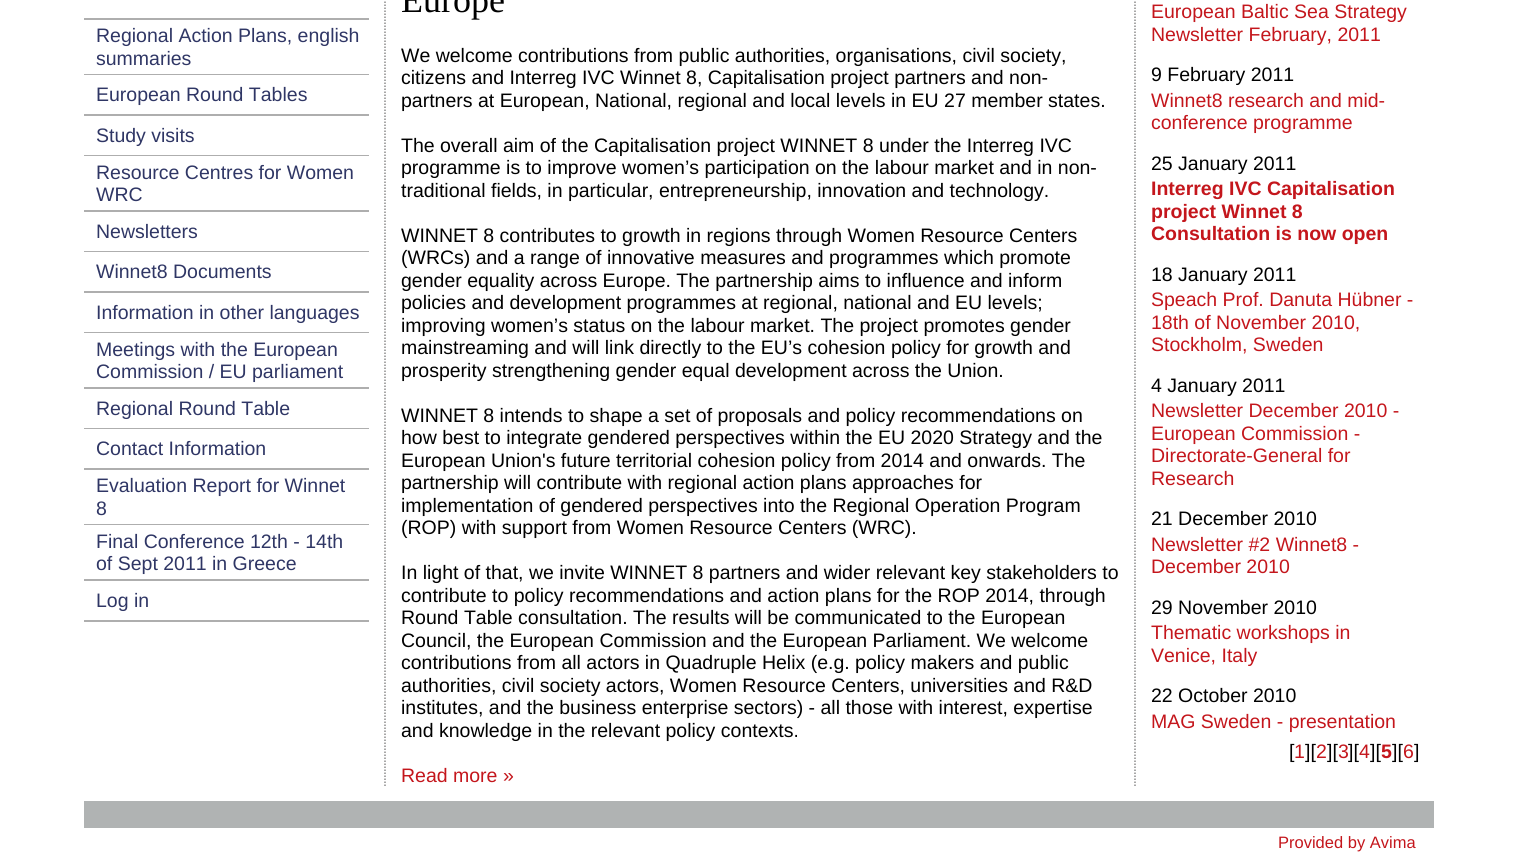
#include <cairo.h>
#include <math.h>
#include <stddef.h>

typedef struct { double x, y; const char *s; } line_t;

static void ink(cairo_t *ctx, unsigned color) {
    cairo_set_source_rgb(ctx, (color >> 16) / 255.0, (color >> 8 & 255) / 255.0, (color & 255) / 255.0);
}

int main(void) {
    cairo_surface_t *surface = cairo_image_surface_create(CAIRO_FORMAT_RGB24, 1518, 854);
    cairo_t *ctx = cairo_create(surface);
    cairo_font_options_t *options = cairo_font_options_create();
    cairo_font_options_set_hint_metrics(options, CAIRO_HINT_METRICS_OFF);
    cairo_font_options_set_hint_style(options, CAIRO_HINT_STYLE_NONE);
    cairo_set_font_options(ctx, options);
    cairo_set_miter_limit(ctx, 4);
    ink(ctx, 0xFFFFFF);
    cairo_paint(ctx);
    ink(ctx, 0xAEAEAE);
    cairo_rectangle(ctx, 84, 18, 285, 2);
    cairo_fill(ctx);
    cairo_select_font_face(ctx, "Liberation Sans", CAIRO_FONT_SLANT_NORMAL, CAIRO_FONT_WEIGHT_NORMAL);
    cairo_set_font_size(ctx, 19.5);
    ink(ctx, 0x2F3665);
    cairo_move_to(ctx, 96, 42);
    cairo_show_text(ctx, "Regional Action Plans, english");
    cairo_move_to(ctx, 96, 65);
    cairo_show_text(ctx, "summaries");
    ink(ctx, 0xAEAEAE);
    cairo_rectangle(ctx, 84, 74, 285, 1);
    cairo_fill(ctx);
    ink(ctx, 0x2F3665);
    cairo_move_to(ctx, 96, 101);
    cairo_show_text(ctx, "European Round Tables");
    ink(ctx, 0xAEAEAE);
    cairo_rectangle(ctx, 84, 114, 285, 2);
    cairo_fill(ctx);
    ink(ctx, 0x2F3665);
    cairo_move_to(ctx, 96, 142);
    cairo_show_text(ctx, "Study visits");
    ink(ctx, 0xAEAEAE);
    cairo_rectangle(ctx, 84, 155, 285, 1);
    cairo_fill(ctx);
    ink(ctx, 0x2F3665);
    cairo_move_to(ctx, 96, 179);
    cairo_show_text(ctx, "Resource Centres for Women");
    cairo_move_to(ctx, 96, 201);
    cairo_show_text(ctx, "WRC");
    ink(ctx, 0xAEAEAE);
    cairo_rectangle(ctx, 84, 210, 285, 2);
    cairo_fill(ctx);
    ink(ctx, 0x2F3665);
    cairo_move_to(ctx, 96, 238);
    cairo_show_text(ctx, "Newsletters");
    ink(ctx, 0xAEAEAE);
    cairo_rectangle(ctx, 84, 251, 285, 1);
    cairo_fill(ctx);
    ink(ctx, 0x2F3665);
    cairo_move_to(ctx, 96, 278);
    cairo_show_text(ctx, "Winnet8 Documents");
    ink(ctx, 0xAEAEAE);
    cairo_rectangle(ctx, 84, 291, 285, 2);
    cairo_fill(ctx);
    ink(ctx, 0x2F3665);
    cairo_move_to(ctx, 96, 319);
    cairo_show_text(ctx, "Information in other languages");
    ink(ctx, 0xAEAEAE);
    cairo_rectangle(ctx, 84, 332, 285, 1);
    cairo_fill(ctx);
    ink(ctx, 0x2F3665);
    cairo_move_to(ctx, 96, 356);
    cairo_show_text(ctx, "Meetings with the European");
    cairo_move_to(ctx, 96, 378);
    cairo_show_text(ctx, "Commission / EU parliament");
    ink(ctx, 0xAEAEAE);
    cairo_rectangle(ctx, 84, 387, 285, 2);
    cairo_fill(ctx);
    ink(ctx, 0x2F3665);
    cairo_move_to(ctx, 96, 415);
    cairo_show_text(ctx, "Regional Round Table");
    ink(ctx, 0xAEAEAE);
    cairo_rectangle(ctx, 84, 428, 285, 1);
    cairo_fill(ctx);
    ink(ctx, 0x2F3665);
    cairo_move_to(ctx, 96, 455);
    cairo_show_text(ctx, "Contact Information");
    ink(ctx, 0xAEAEAE);
    cairo_rectangle(ctx, 84, 468, 285, 2);
    cairo_fill(ctx);
    ink(ctx, 0x2F3665);
    cairo_move_to(ctx, 96, 492);
    cairo_show_text(ctx, "Evaluation Report for Winnet");
    cairo_move_to(ctx, 96, 515);
    cairo_show_text(ctx, "8");
    ink(ctx, 0xAEAEAE);
    cairo_rectangle(ctx, 84, 524, 285, 1);
    cairo_fill(ctx);
    ink(ctx, 0x2F3665);
    cairo_move_to(ctx, 96, 548);
    cairo_show_text(ctx, "Final Conference 12th - 14th");
    cairo_move_to(ctx, 96, 570);
    cairo_show_text(ctx, "of Sept 2011 in Greece");
    ink(ctx, 0xAEAEAE);
    cairo_rectangle(ctx, 84, 579, 285, 2);
    cairo_fill(ctx);
    ink(ctx, 0x2F3665);
    cairo_move_to(ctx, 96, 607);
    cairo_show_text(ctx, "Log in");
    ink(ctx, 0xAEAEAE);
    cairo_rectangle(ctx, 84, 620, 285, 2);
    cairo_fill(ctx);
    cairo_new_path(ctx);
    cairo_move_to(ctx, 385, -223.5);
    cairo_line_to(ctx, 385, 786);
    ink(ctx, 0x8C8B8B);
    cairo_set_line_width(ctx, 1.5);
    cairo_set_dash(ctx, (double[]){1.5, 1.5}, 2, 0);
    cairo_stroke(ctx);
    cairo_select_font_face(ctx, "Liberation Serif", CAIRO_FONT_SLANT_NORMAL, CAIRO_FONT_WEIGHT_NORMAL);
    cairo_set_font_size(ctx, 36);
    ink(ctx, 0x000000);
    cairo_move_to(ctx, 401, 12);
    cairo_show_text(ctx, "Europe");
    cairo_select_font_face(ctx, "Liberation Sans", CAIRO_FONT_SLANT_NORMAL, CAIRO_FONT_WEIGHT_NORMAL);
    cairo_set_font_size(ctx, 19.5);
    {
        static const line_t items[] = {
            {401, 62, "We welcome contributions from public authorities, organisations, civil society,"},
            {401, 84, "citizens and Interreg IVC Winnet 8, Capitalisation project partners and non-"},
            {401, 107, "partners at European, National, regional and local levels in EU 27 member states."},
            {401, 152, "The overall aim of the Capitalisation project WINNET 8 under the Interreg IVC"},
            {401, 174, "programme is to improve women’s participation on the labour market and in non-"},
            {401, 197, "traditional fields, in particular, entrepreneurship, innovation and technology."},
            {401, 242, "WINNET 8 contributes to growth in regions through Women Resource Centers"},
            {401, 264, "(WRCs) and a range of innovative measures and programmes which promote"},
            {401, 287, "gender equality across Europe. The partnership aims to influence and inform"},
            {401, 309, "policies and development programmes at regional, national and EU levels;"},
            {401, 332, "improving women’s status on the labour market. The project promotes gender"},
            {401, 354, "mainstreaming and will link directly to the EU’s cohesion policy for growth and"},
            {401, 377, "prosperity strengthening gender equal development across the Union."},
            {401, 422, "WINNET 8 intends to shape a set of proposals and policy recommendations on"},
            {401, 444, "how best to integrate gendered perspectives within the EU 2020 Strategy and the"},
            {401, 467, "European Union's future territorial cohesion policy from 2014 and onwards. The"},
            {401, 489, "partnership will contribute with regional action plans approaches for"},
            {401, 512, "implementation of gendered perspectives into the Regional Operation Program"},
            {401, 534, "(ROP) with support from Women Resource Centers (WRC)."},
            {401, 579, "In light of that, we invite WINNET 8 partners and wider relevant key stakeholders to"},
            {401, 602, "contribute to policy recommendations and action plans for the ROP 2014, through"},
            {401, 624, "Round Table consultation. The results will be communicated to the European"},
            {401, 647, "Council, the European Commission and the European Parliament. We welcome"},
            {401, 669, "contributions from all actors in Quadruple Helix (e.g. policy makers and public"},
            {401, 692, "authorities, civil society actors, Women Resource Centers, universities and R&D"},
            {401, 714, "institutes, and the business enterprise sectors) - all those with interest, expertise"},
            {401, 737, "and knowledge in the relevant policy contexts."},
        };
        for (size_t i = 0; i < sizeof items / sizeof *items; i++) {
            cairo_move_to(ctx, items[i].x, items[i].y);
            cairo_show_text(ctx, items[i].s);
        }
    }
    ink(ctx, 0xC4161C);
    cairo_move_to(ctx, 401, 782);
    cairo_show_text(ctx, "Read more »");
    cairo_new_path(ctx);
    cairo_move_to(ctx, 1135, -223.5);
    cairo_line_to(ctx, 1135, 786);
    ink(ctx, 0x8C8B8B);
    cairo_stroke(ctx);
    ink(ctx, 0xC4161C);
    cairo_move_to(ctx, 1151, 18);
    cairo_show_text(ctx, "European Baltic Sea Strategy");
    cairo_move_to(ctx, 1151, 41);
    cairo_show_text(ctx, "Newsletter February, 2011");
    ink(ctx, 0x000000);
    cairo_move_to(ctx, 1151, 81);
    cairo_show_text(ctx, "9 February 2011");
    ink(ctx, 0xC4161C);
    cairo_move_to(ctx, 1151, 107);
    cairo_show_text(ctx, "Winnet8 research and mid-");
    cairo_move_to(ctx, 1151, 129);
    cairo_show_text(ctx, "conference programme");
    ink(ctx, 0x000000);
    cairo_move_to(ctx, 1151, 170);
    cairo_show_text(ctx, "25 January 2011");
    cairo_select_font_face(ctx, "Liberation Sans", CAIRO_FONT_SLANT_NORMAL, CAIRO_FONT_WEIGHT_BOLD);
    ink(ctx, 0xC4161C);
    {
        static const line_t items[] = {
            {1151, 195, "Interreg IVC Capitalisation"},
            {1151, 218, "project Winnet 8"},
            {1151, 240, "Consultation is now open"},
        };
        for (size_t i = 0; i < sizeof items / sizeof *items; i++) {
            cairo_move_to(ctx, items[i].x, items[i].y);
            cairo_show_text(ctx, items[i].s);
        }
    }
    cairo_select_font_face(ctx, "Liberation Sans", CAIRO_FONT_SLANT_NORMAL, CAIRO_FONT_WEIGHT_NORMAL);
    ink(ctx, 0x000000);
    cairo_move_to(ctx, 1151, 281);
    cairo_show_text(ctx, "18 January 2011");
    ink(ctx, 0xC4161C);
    {
        static const line_t items[] = {
            {1151, 306, "Speach Prof. Danuta Hübner -"},
            {1151, 329, "18th of November 2010,"},
            {1151, 351, "Stockholm, Sweden"},
        };
        for (size_t i = 0; i < sizeof items / sizeof *items; i++) {
            cairo_move_to(ctx, items[i].x, items[i].y);
            cairo_show_text(ctx, items[i].s);
        }
    }
    ink(ctx, 0x000000);
    cairo_move_to(ctx, 1151, 392);
    cairo_show_text(ctx, "4 January 2011");
    ink(ctx, 0xC4161C);
    {
        static const line_t items[] = {
            {1151, 417, "Newsletter December 2010 -"},
            {1151, 440, "European Commission -"},
            {1151, 462, "Directorate-General for"},
            {1151, 485, "Research"},
        };
        for (size_t i = 0; i < sizeof items / sizeof *items; i++) {
            cairo_move_to(ctx, items[i].x, items[i].y);
            cairo_show_text(ctx, items[i].s);
        }
    }
    ink(ctx, 0x000000);
    cairo_move_to(ctx, 1151, 525);
    cairo_show_text(ctx, "21 December 2010");
    ink(ctx, 0xC4161C);
    cairo_move_to(ctx, 1151, 551);
    cairo_show_text(ctx, "Newsletter #2 Winnet8 -");
    cairo_move_to(ctx, 1151, 573);
    cairo_show_text(ctx, "December 2010");
    ink(ctx, 0x000000);
    cairo_move_to(ctx, 1151, 614);
    cairo_show_text(ctx, "29 November 2010");
    ink(ctx, 0xC4161C);
    cairo_move_to(ctx, 1151, 639);
    cairo_show_text(ctx, "Thematic workshops in");
    cairo_move_to(ctx, 1151, 662);
    cairo_show_text(ctx, "Venice, Italy");
    ink(ctx, 0x000000);
    cairo_move_to(ctx, 1151, 702);
    cairo_show_text(ctx, "22 October 2010");
    ink(ctx, 0xC4161C);
    cairo_move_to(ctx, 1151, 728);
    cairo_show_text(ctx, "MAG Sweden - presentation");
    ink(ctx, 0x000000);
    cairo_move_to(ctx, 1289, 758);
    cairo_show_text(ctx, "[");
    ink(ctx, 0xC4161C);
    cairo_move_to(ctx, 1294, 758);
    cairo_show_text(ctx, "1");
    ink(ctx, 0x000000);
    cairo_move_to(ctx, 1305, 758);
    cairo_show_text(ctx, "][");
    ink(ctx, 0xC4161C);
    cairo_move_to(ctx, 1316, 758);
    cairo_show_text(ctx, "2");
    ink(ctx, 0x000000);
    cairo_move_to(ctx, 1327, 758);
    cairo_show_text(ctx, "][");
    ink(ctx, 0xC4161C);
    cairo_move_to(ctx, 1338, 758);
    cairo_show_text(ctx, "3");
    ink(ctx, 0x000000);
    cairo_move_to(ctx, 1348, 758);
    cairo_show_text(ctx, "][");
    ink(ctx, 0xC4161C);
    cairo_move_to(ctx, 1359, 758);
    cairo_show_text(ctx, "4");
    ink(ctx, 0x000000);
    cairo_move_to(ctx, 1370, 758);
    cairo_show_text(ctx, "][");
    cairo_select_font_face(ctx, "Liberation Sans", CAIRO_FONT_SLANT_NORMAL, CAIRO_FONT_WEIGHT_BOLD);
    ink(ctx, 0xC4161C);
    cairo_move_to(ctx, 1381, 758);
    cairo_show_text(ctx, "5");
    cairo_select_font_face(ctx, "Liberation Sans", CAIRO_FONT_SLANT_NORMAL, CAIRO_FONT_WEIGHT_NORMAL);
    ink(ctx, 0x000000);
    cairo_move_to(ctx, 1392, 758);
    cairo_show_text(ctx, "][");
    ink(ctx, 0xC4161C);
    cairo_move_to(ctx, 1403, 758);
    cairo_show_text(ctx, "6");
    ink(ctx, 0x000000);
    cairo_move_to(ctx, 1414, 758);
    cairo_show_text(ctx, "]");
    ink(ctx, 0xB0B3B3);
    cairo_rectangle(ctx, 84, 801, 1350, 27);
    cairo_fill(ctx);
    cairo_set_font_size(ctx, 16.5);
    ink(ctx, 0xC4161C);
    cairo_move_to(ctx, 1278, 848);
    cairo_show_text(ctx, "Provided by Avima");
    cairo_surface_write_to_png(surface, "image.png");
    cairo_font_options_destroy(options);
    cairo_destroy(ctx);
    cairo_surface_destroy(surface);
    return 0;
}
